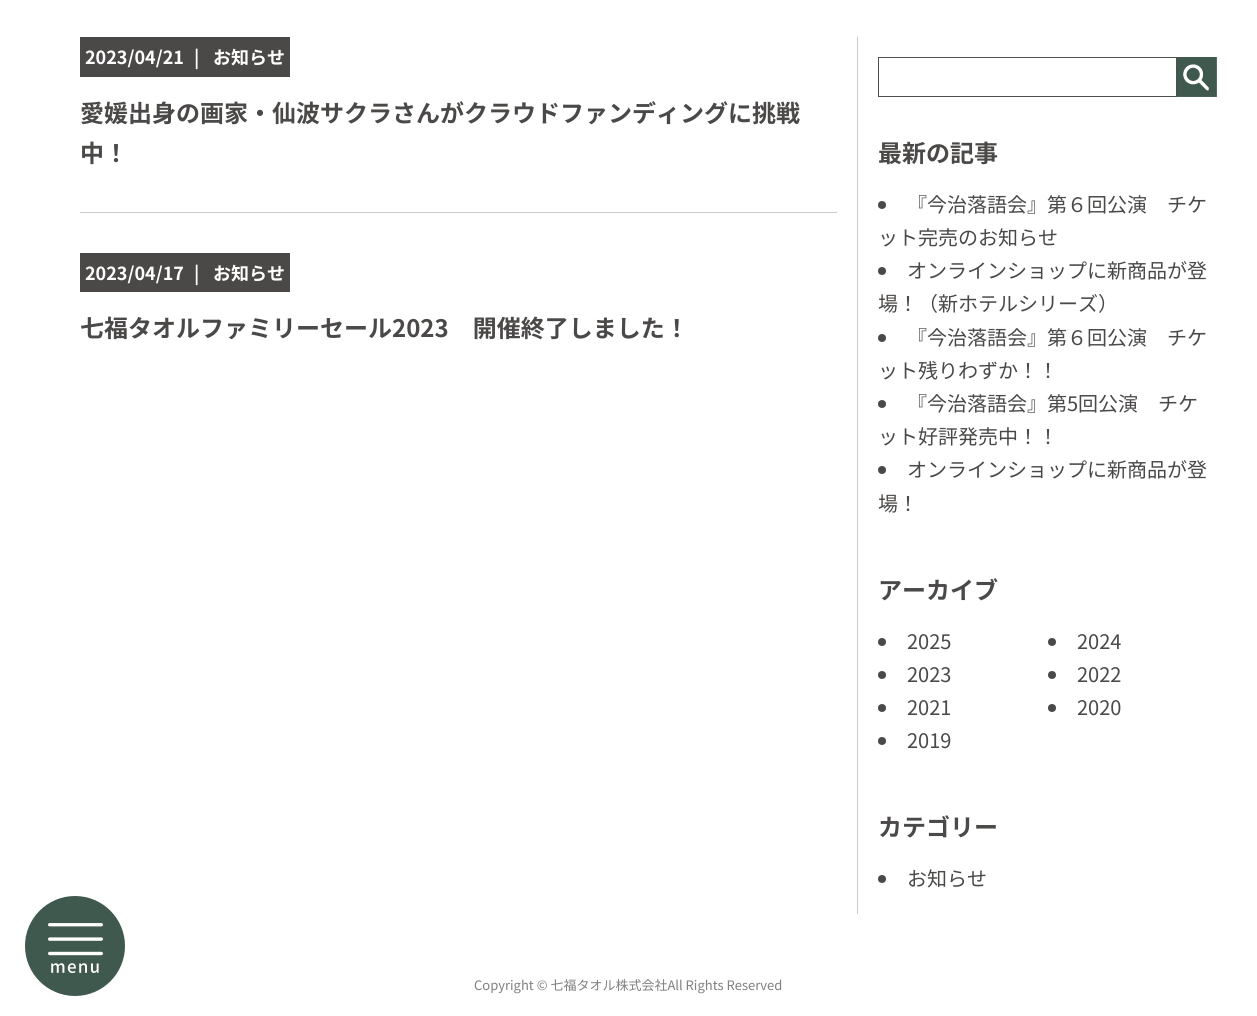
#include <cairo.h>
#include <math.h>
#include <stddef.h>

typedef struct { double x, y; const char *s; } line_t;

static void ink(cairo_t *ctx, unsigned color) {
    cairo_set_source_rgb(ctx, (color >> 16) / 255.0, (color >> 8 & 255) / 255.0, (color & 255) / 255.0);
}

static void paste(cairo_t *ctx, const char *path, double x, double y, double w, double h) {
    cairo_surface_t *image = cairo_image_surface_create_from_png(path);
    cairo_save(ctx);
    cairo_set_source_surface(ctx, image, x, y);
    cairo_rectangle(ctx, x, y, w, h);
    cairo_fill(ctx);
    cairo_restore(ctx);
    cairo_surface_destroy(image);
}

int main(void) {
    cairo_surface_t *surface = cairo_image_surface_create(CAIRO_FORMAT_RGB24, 1257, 1016);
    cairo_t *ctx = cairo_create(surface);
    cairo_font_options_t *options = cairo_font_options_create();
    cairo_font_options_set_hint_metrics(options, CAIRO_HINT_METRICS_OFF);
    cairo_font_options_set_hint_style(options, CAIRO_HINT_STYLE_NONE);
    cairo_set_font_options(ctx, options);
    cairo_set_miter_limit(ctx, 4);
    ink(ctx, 0xFFFFFF);
    cairo_paint(ctx);
    ink(ctx, 0x4B4948);
    cairo_rectangle(ctx, 80, 37, 210, 40);
    cairo_fill(ctx);
    cairo_select_font_face(ctx, "Noto Sans JP", CAIRO_FONT_SLANT_NORMAL, CAIRO_FONT_WEIGHT_BOLD);
    cairo_set_font_size(ctx, 18);
    ink(ctx, 0xFFFFFF);
    {
        static const line_t items[] = {
            {85, 64, "2023/04/21"},
            {194, 64, "|"},
            {213, 64, "お知らせ"},
        };
        for (size_t i = 0; i < sizeof items / sizeof *items; i++) {
            cairo_move_to(ctx, items[i].x, items[i].y);
            cairo_show_text(ctx, items[i].s);
        }
    }
    cairo_set_font_size(ctx, 24);
    ink(ctx, 0x4B4948);
    cairo_move_to(ctx, 80, 122);
    cairo_show_text(ctx, "愛媛出身の画家・仙波サクラさんがクラウドファンディングに挑戦");
    cairo_move_to(ctx, 80, 162);
    cairo_show_text(ctx, "中！");
    ink(ctx, 0xCBCBCB);
    cairo_rectangle(ctx, 80, 212, 757, 1);
    cairo_fill(ctx);
    ink(ctx, 0x4B4948);
    cairo_rectangle(ctx, 80, 253, 210, 39);
    cairo_fill(ctx);
    cairo_set_font_size(ctx, 18);
    ink(ctx, 0xFFFFFF);
    {
        static const line_t items[] = {
            {85, 280, "2023/04/17"},
            {194, 280, "|"},
            {213, 280, "お知らせ"},
        };
        for (size_t i = 0; i < sizeof items / sizeof *items; i++) {
            cairo_move_to(ctx, items[i].x, items[i].y);
            cairo_show_text(ctx, items[i].s);
        }
    }
    cairo_set_font_size(ctx, 24);
    ink(ctx, 0x4B4948);
    cairo_move_to(ctx, 80, 337);
    cairo_show_text(ctx, "七福タオルファミリーセール2023　開催終了しました！");
    ink(ctx, 0xCBCBCB);
    cairo_rectangle(ctx, 857, 37, 1, 877);
    cairo_fill(ctx);
    cairo_rectangle(ctx, 878.5, 57.5, 298, 39);
    ink(ctx, 0x4B504C);
    cairo_set_line_width(ctx, 1);
    cairo_stroke(ctx);
    paste(ctx, "media/1.png", 1177, 57, 40, 40);
    ink(ctx, 0x4B4948);
    cairo_move_to(ctx, 878, 162);
    cairo_show_text(ctx, "最新の記事");
    cairo_new_path(ctx);
    cairo_arc(ctx, 882, 205, 4, 0, 2 * M_PI);
    cairo_fill(ctx);
    cairo_select_font_face(ctx, "Noto Sans JP", CAIRO_FONT_SLANT_NORMAL, CAIRO_FONT_WEIGHT_NORMAL);
    cairo_set_font_size(ctx, 20);
    cairo_move_to(ctx, 907, 212);
    cairo_show_text(ctx, "『今治落語会』第６回公演　チケ");
    cairo_move_to(ctx, 878, 245);
    cairo_show_text(ctx, "ット完売のお知らせ");
    cairo_new_path(ctx);
    cairo_arc(ctx, 882, 271, 4, 0, 2 * M_PI);
    cairo_fill(ctx);
    cairo_move_to(ctx, 907, 278);
    cairo_show_text(ctx, "オンラインショップに新商品が登");
    cairo_move_to(ctx, 878, 311);
    cairo_show_text(ctx, "場！（新ホテルシリーズ）");
    cairo_new_path(ctx);
    cairo_arc(ctx, 882, 338, 4, 0, 2 * M_PI);
    cairo_fill(ctx);
    cairo_move_to(ctx, 907, 345);
    cairo_show_text(ctx, "『今治落語会』第６回公演　チケ");
    cairo_move_to(ctx, 878, 378);
    cairo_show_text(ctx, "ット残りわずか！！");
    cairo_new_path(ctx);
    cairo_arc(ctx, 882, 404, 4, 0, 2 * M_PI);
    cairo_fill(ctx);
    cairo_move_to(ctx, 907, 411);
    cairo_show_text(ctx, "『今治落語会』第5回公演　チケ");
    cairo_move_to(ctx, 878, 444);
    cairo_show_text(ctx, "ット好評発売中！！");
    cairo_new_path(ctx);
    cairo_arc(ctx, 882, 470, 4, 0, 2 * M_PI);
    cairo_fill(ctx);
    cairo_move_to(ctx, 907, 477);
    cairo_show_text(ctx, "オンラインショップに新商品が登");
    cairo_move_to(ctx, 878, 511);
    cairo_show_text(ctx, "場！");
    cairo_select_font_face(ctx, "Noto Sans JP", CAIRO_FONT_SLANT_NORMAL, CAIRO_FONT_WEIGHT_BOLD);
    cairo_set_font_size(ctx, 24);
    cairo_move_to(ctx, 878, 599);
    cairo_show_text(ctx, "アーカイブ");
    cairo_new_path(ctx);
    cairo_arc(ctx, 882, 642, 4, 0, 2 * M_PI);
    cairo_fill(ctx);
    cairo_select_font_face(ctx, "Noto Sans JP", CAIRO_FONT_SLANT_NORMAL, CAIRO_FONT_WEIGHT_NORMAL);
    cairo_set_font_size(ctx, 20);
    cairo_move_to(ctx, 907, 649);
    cairo_show_text(ctx, "2025");
    cairo_new_path(ctx);
    cairo_arc(ctx, 1052, 642, 4, 0, 2 * M_PI);
    cairo_fill(ctx);
    cairo_move_to(ctx, 1077, 649);
    cairo_show_text(ctx, "2024");
    cairo_new_path(ctx);
    cairo_arc(ctx, 882, 675, 4, 0, 2 * M_PI);
    cairo_fill(ctx);
    cairo_move_to(ctx, 907, 682);
    cairo_show_text(ctx, "2023");
    cairo_new_path(ctx);
    cairo_arc(ctx, 1052, 675, 4, 0, 2 * M_PI);
    cairo_fill(ctx);
    cairo_move_to(ctx, 1077, 682);
    cairo_show_text(ctx, "2022");
    cairo_new_path(ctx);
    cairo_arc(ctx, 882, 708, 4, 0, 2 * M_PI);
    cairo_fill(ctx);
    cairo_move_to(ctx, 907, 715);
    cairo_show_text(ctx, "2021");
    cairo_new_path(ctx);
    cairo_arc(ctx, 1052, 708, 4, 0, 2 * M_PI);
    cairo_fill(ctx);
    cairo_move_to(ctx, 1077, 715);
    cairo_show_text(ctx, "2020");
    cairo_new_path(ctx);
    cairo_arc(ctx, 882, 741, 4, 0, 2 * M_PI);
    cairo_fill(ctx);
    cairo_move_to(ctx, 907, 748);
    cairo_show_text(ctx, "2019");
    cairo_select_font_face(ctx, "Noto Sans JP", CAIRO_FONT_SLANT_NORMAL, CAIRO_FONT_WEIGHT_BOLD);
    cairo_set_font_size(ctx, 24);
    cairo_move_to(ctx, 878, 836);
    cairo_show_text(ctx, "カテゴリー");
    cairo_new_path(ctx);
    cairo_arc(ctx, 882, 879, 4, 0, 2 * M_PI);
    cairo_fill(ctx);
    cairo_select_font_face(ctx, "Noto Sans JP", CAIRO_FONT_SLANT_NORMAL, CAIRO_FONT_WEIGHT_NORMAL);
    cairo_set_font_size(ctx, 20);
    cairo_move_to(ctx, 907, 886);
    cairo_show_text(ctx, "お知らせ");
    ink(ctx, 0x40594E);
    cairo_new_path(ctx);
    cairo_arc(ctx, 75, 946, 50, 0, 2 * M_PI);
    cairo_fill(ctx);
    paste(ctx, "media/2.png", 48, 923, 55, 50);
    cairo_set_font_size(ctx, 13);
    ink(ctx, 0x808080);
    cairo_move_to(ctx, 474, 990);
    cairo_show_text(ctx, "Copyright © 七福タオル株式会社All Rights Reserved");
    cairo_surface_write_to_png(surface, "image.png");
    cairo_font_options_destroy(options);
    cairo_destroy(ctx);
    cairo_surface_destroy(surface);
    return 0;
}
